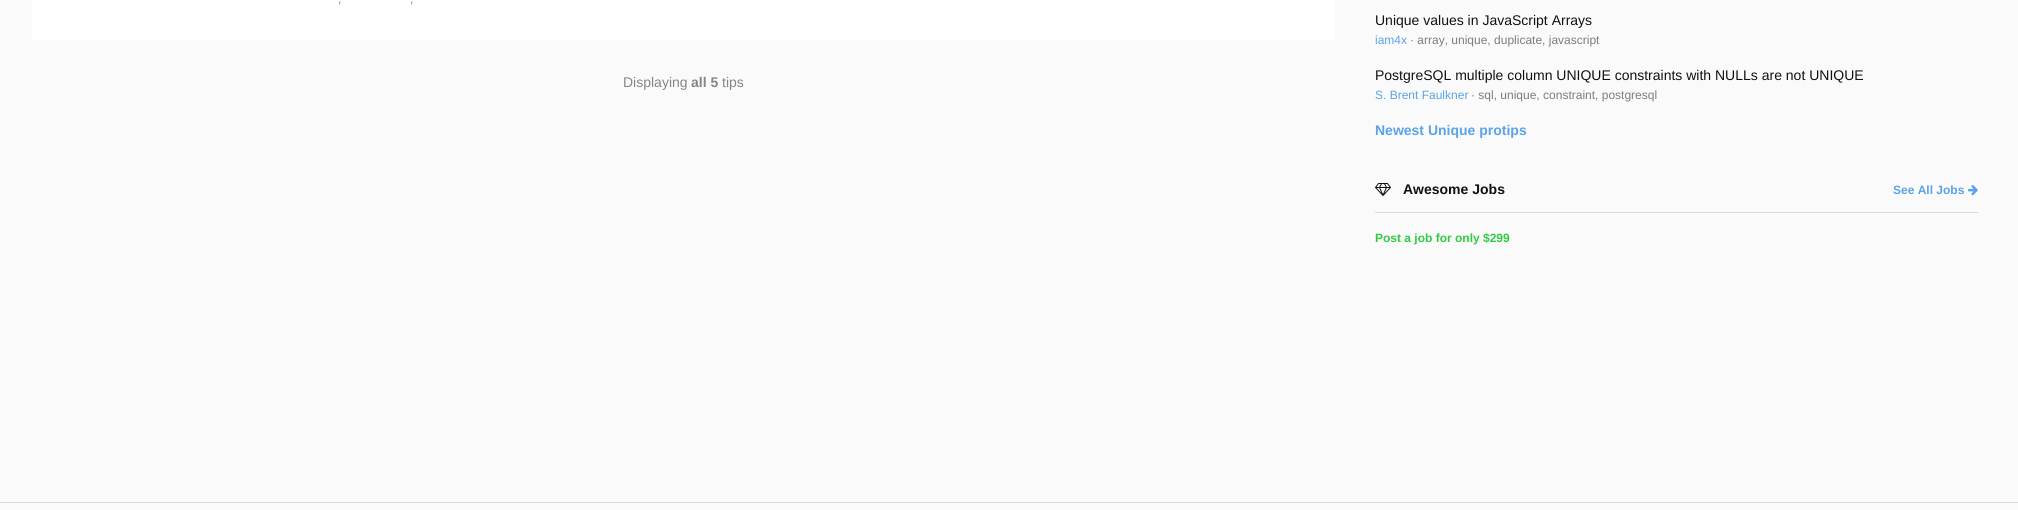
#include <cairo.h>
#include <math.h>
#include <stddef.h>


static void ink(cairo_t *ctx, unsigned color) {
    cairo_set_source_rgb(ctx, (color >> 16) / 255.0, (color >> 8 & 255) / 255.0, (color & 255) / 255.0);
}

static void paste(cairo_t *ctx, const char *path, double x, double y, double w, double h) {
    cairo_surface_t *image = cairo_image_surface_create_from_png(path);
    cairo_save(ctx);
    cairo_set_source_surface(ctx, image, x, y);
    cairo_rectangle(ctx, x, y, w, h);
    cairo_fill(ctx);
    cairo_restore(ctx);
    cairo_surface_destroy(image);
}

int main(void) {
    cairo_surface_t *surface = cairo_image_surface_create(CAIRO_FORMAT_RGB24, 2018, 510);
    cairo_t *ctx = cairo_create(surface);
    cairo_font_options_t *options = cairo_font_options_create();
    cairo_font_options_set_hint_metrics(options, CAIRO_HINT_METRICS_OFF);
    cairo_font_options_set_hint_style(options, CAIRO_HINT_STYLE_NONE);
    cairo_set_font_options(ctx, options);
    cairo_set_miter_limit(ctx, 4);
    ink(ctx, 0xFAFAFA);
    cairo_paint(ctx);
    ink(ctx, 0xFFFFFF);
    cairo_rectangle(ctx, 32, 0, 1303, 40);
    cairo_fill(ctx);
    cairo_select_font_face(ctx, "Liberation Sans", CAIRO_FONT_SLANT_NORMAL, CAIRO_FONT_WEIGHT_NORMAL);
    cairo_set_font_size(ctx, 12);
    ink(ctx, 0x7D7D7D);
    cairo_move_to(ctx, 338, 3);
    cairo_show_text(ctx, ",");
    cairo_move_to(ctx, 410, 3);
    cairo_show_text(ctx, ",");
    cairo_set_font_size(ctx, 14);
    ink(ctx, 0x868686);
    cairo_move_to(ctx, 623, 87);
    cairo_show_text(ctx, "Displaying");
    cairo_select_font_face(ctx, "Liberation Sans", CAIRO_FONT_SLANT_NORMAL, CAIRO_FONT_WEIGHT_BOLD);
    cairo_move_to(ctx, 691, 87);
    cairo_show_text(ctx, "all 5");
    cairo_select_font_face(ctx, "Liberation Sans", CAIRO_FONT_SLANT_NORMAL, CAIRO_FONT_WEIGHT_NORMAL);
    cairo_move_to(ctx, 722, 87);
    cairo_show_text(ctx, "tips");
    ink(ctx, 0x111111);
    cairo_move_to(ctx, 1375, 25);
    cairo_show_text(ctx, "Unique values in JavaScript Arrays");
    cairo_set_font_size(ctx, 12);
    ink(ctx, 0x5AA3E8);
    cairo_move_to(ctx, 1375, 44);
    cairo_show_text(ctx, "iam4x");
    ink(ctx, 0x7D7D7D);
    cairo_move_to(ctx, 1410, 44);
    cairo_show_text(ctx, "· array, unique, duplicate, javascript");
    cairo_set_font_size(ctx, 14);
    ink(ctx, 0x111111);
    cairo_move_to(ctx, 1375, 80);
    cairo_show_text(ctx, "PostgreSQL multiple column UNIQUE constraints with NULLs are not UNIQUE");
    cairo_set_font_size(ctx, 12);
    ink(ctx, 0x5AA3E8);
    cairo_move_to(ctx, 1375, 99);
    cairo_show_text(ctx, "S. Brent Faulkner");
    ink(ctx, 0x7D7D7D);
    cairo_move_to(ctx, 1471, 99);
    cairo_show_text(ctx, "· sql, unique, constraint, postgresql");
    cairo_select_font_face(ctx, "Liberation Sans", CAIRO_FONT_SLANT_NORMAL, CAIRO_FONT_WEIGHT_BOLD);
    cairo_set_font_size(ctx, 14);
    ink(ctx, 0x5AA3E8);
    cairo_move_to(ctx, 1375, 135);
    cairo_show_text(ctx, "Newest Unique protips");
    paste(ctx, "media/1.png", 1375, 183, 16, 13);
    ink(ctx, 0x111111);
    cairo_move_to(ctx, 1403, 194);
    cairo_show_text(ctx, "Awesome Jobs");
    cairo_set_font_size(ctx, 12);
    ink(ctx, 0x5AA3E8);
    cairo_move_to(ctx, 1893, 194);
    cairo_show_text(ctx, "See All Jobs");
    paste(ctx, "media/2.png", 1968, 185, 10, 11);
    ink(ctx, 0xDBDBDB);
    cairo_rectangle(ctx, 1375, 212, 603, 1);
    cairo_fill(ctx);
    ink(ctx, 0x2ECC40);
    cairo_move_to(ctx, 1375, 242);
    cairo_show_text(ctx, "Post a job for only $299");
    ink(ctx, 0xDBDBDB);
    cairo_rectangle(ctx, 0, 502, 2018, 1);
    cairo_fill(ctx);
    cairo_surface_write_to_png(surface, "image.png");
    cairo_font_options_destroy(options);
    cairo_destroy(ctx);
    cairo_surface_destroy(surface);
    return 0;
}
